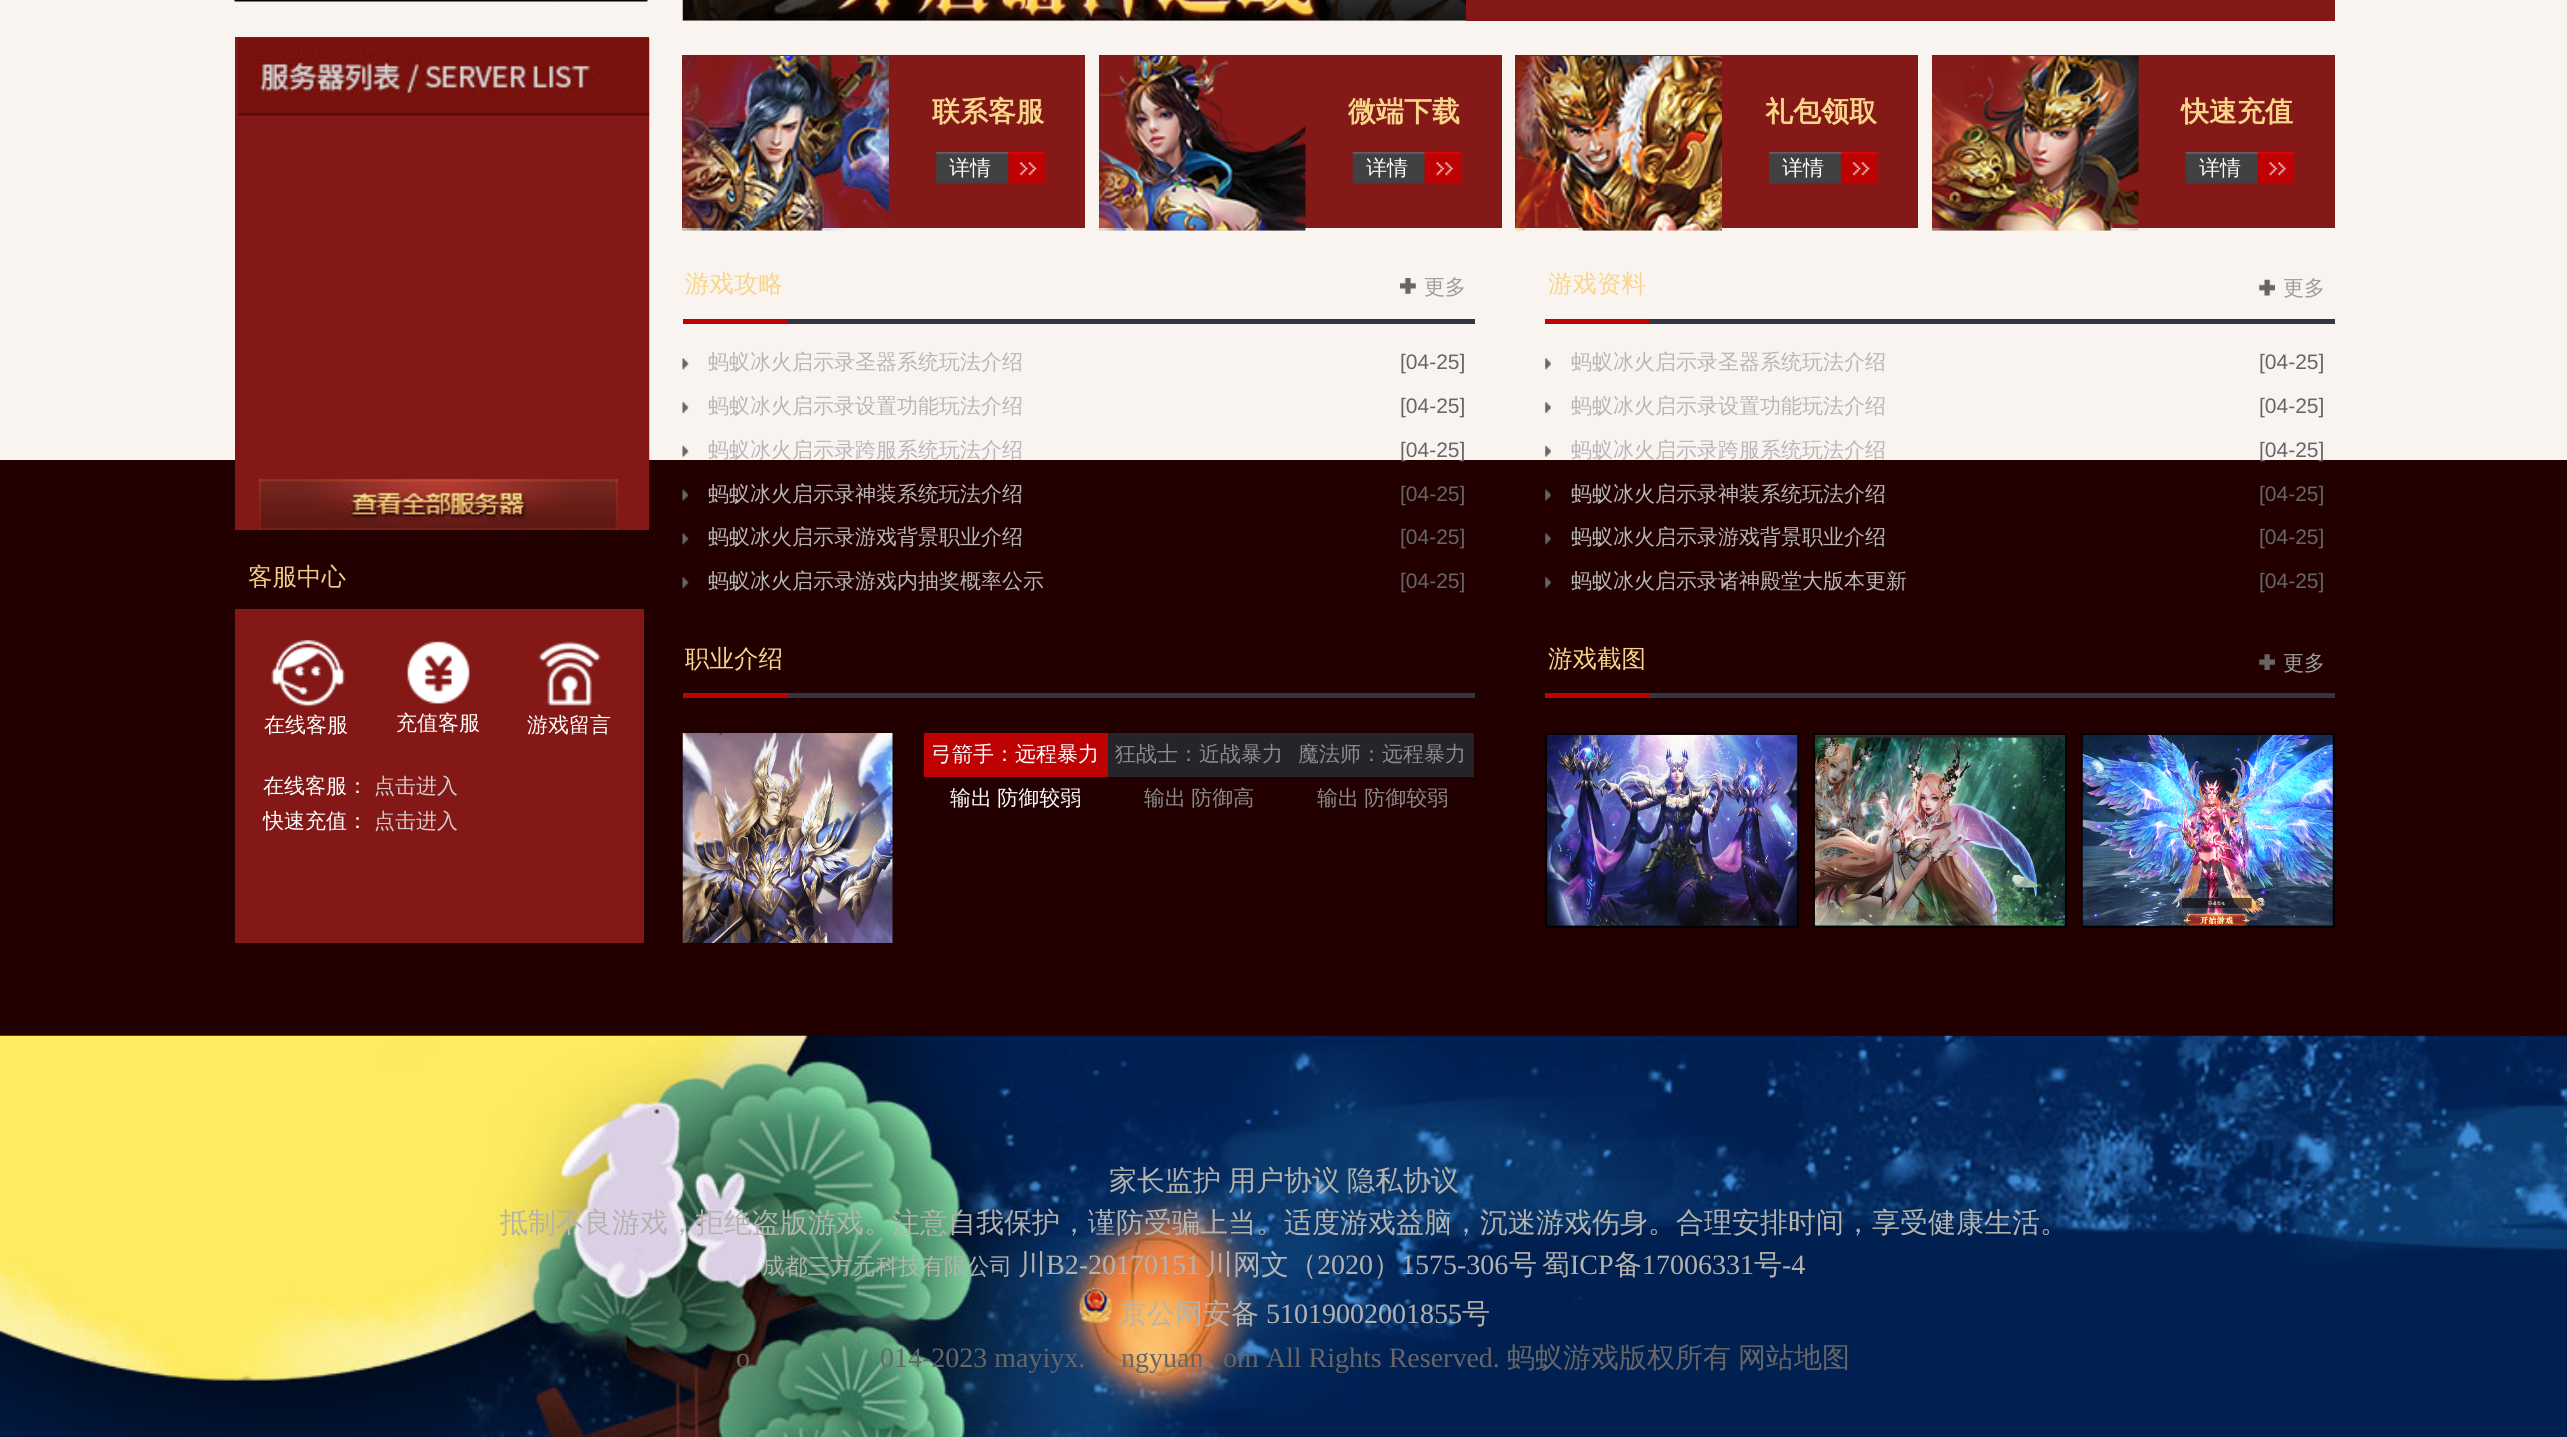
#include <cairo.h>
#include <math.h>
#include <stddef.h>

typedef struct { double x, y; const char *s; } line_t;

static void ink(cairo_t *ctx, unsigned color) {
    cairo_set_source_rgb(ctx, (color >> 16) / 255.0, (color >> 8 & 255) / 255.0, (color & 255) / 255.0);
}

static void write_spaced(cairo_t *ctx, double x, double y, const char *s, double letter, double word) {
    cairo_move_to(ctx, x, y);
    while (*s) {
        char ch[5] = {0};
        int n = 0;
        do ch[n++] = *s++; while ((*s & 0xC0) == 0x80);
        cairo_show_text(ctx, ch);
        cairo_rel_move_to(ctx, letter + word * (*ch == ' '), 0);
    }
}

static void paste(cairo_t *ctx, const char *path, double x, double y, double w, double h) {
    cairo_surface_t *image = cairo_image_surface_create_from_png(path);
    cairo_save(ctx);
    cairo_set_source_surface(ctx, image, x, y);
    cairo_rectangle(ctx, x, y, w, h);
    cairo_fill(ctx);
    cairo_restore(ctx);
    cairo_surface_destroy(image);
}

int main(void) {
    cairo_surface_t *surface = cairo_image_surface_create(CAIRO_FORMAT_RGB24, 2567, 1437);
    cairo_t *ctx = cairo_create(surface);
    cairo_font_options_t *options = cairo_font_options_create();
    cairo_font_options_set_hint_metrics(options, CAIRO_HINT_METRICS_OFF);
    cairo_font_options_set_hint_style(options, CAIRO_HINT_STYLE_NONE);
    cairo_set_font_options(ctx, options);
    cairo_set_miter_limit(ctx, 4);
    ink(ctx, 0x220000);
    cairo_paint(ctx);
    ink(ctx, 0xF9F4F0);
    cairo_rectangle(ctx, 0, 0, 2567, 460);
    cairo_fill(ctx);
    paste(ctx, "media/1.png", 234, 0, 414, 2);
    ink(ctx, 0x831816);
    cairo_rectangle(ctx, 235, 37, 414, 493);
    cairo_fill(ctx);
    paste(ctx, "media/2.png", 238, 38, 412, 491);
    paste(ctx, "media/3.png", 259, 479, 359, 51);
    cairo_select_font_face(ctx, "WenQuanYi Zen Hei Medium", CAIRO_FONT_SLANT_NORMAL, CAIRO_FONT_WEIGHT_NORMAL);
    cairo_set_font_size(ctx, 24.5);
    ink(ctx, 0xF0CC84);
    cairo_move_to(ctx, 248, 585);
    cairo_show_text(ctx, "客服中心");
    ink(ctx, 0x831816);
    cairo_rectangle(ctx, 235, 609, 409, 334);
    cairo_fill(ctx);
    paste(ctx, "media/4.png", 271, 640, 74, 67);
    cairo_set_font_size(ctx, 21);
    ink(ctx, 0xFFFFFF);
    cairo_move_to(ctx, 264, 732);
    cairo_show_text(ctx, "在线客服");
    paste(ctx, "media/5.png", 406, 640, 65, 65);
    cairo_move_to(ctx, 396, 730);
    cairo_show_text(ctx, "充值客服");
    paste(ctx, "media/6.png", 538, 641, 63, 65);
    cairo_move_to(ctx, 527, 732);
    cairo_show_text(ctx, "游戏留言");
    cairo_move_to(ctx, 263, 793);
    cairo_show_text(ctx, "在线客服：");
    ink(ctx, 0xD3CCCC);
    cairo_move_to(ctx, 374, 793);
    cairo_show_text(ctx, "点击进入");
    ink(ctx, 0xFFFFFF);
    cairo_move_to(ctx, 263, 828);
    cairo_show_text(ctx, "快速充值：");
    ink(ctx, 0xD3CCCC);
    cairo_move_to(ctx, 374, 828);
    cairo_show_text(ctx, "点击进入");
    paste(ctx, "media/7.png", 682, 0, 784, 21);
    ink(ctx, 0x831816);
    cairo_rectangle(ctx, 1466, 0, 869, 21);
    cairo_fill(ctx);
    ink(ctx, 0x851917);
    cairo_rectangle(ctx, 682, 55, 403, 173);
    cairo_fill(ctx);
    paste(ctx, "media/8.png", 682, 55, 207, 176);
    cairo_select_font_face(ctx, "WenQuanYi Zen Hei", CAIRO_FONT_SLANT_NORMAL, CAIRO_FONT_WEIGHT_BOLD);
    cairo_set_font_size(ctx, 28);
    ink(ctx, 0xF9D58A);
    cairo_move_to(ctx, 932, 121);
    cairo_show_text(ctx, "联系客服");
    paste(ctx, "media/9.png", 936, 152, 109, 32);
    cairo_select_font_face(ctx, "WenQuanYi Zen Hei Medium", CAIRO_FONT_SLANT_NORMAL, CAIRO_FONT_WEIGHT_NORMAL);
    cairo_set_font_size(ctx, 21);
    ink(ctx, 0xFFFFFF);
    cairo_move_to(ctx, 949, 175);
    cairo_show_text(ctx, "详情");
    ink(ctx, 0x851917);
    cairo_rectangle(ctx, 1099, 55, 403, 173);
    cairo_fill(ctx);
    paste(ctx, "media/10.png", 1099, 55, 207, 176);
    cairo_select_font_face(ctx, "WenQuanYi Zen Hei", CAIRO_FONT_SLANT_NORMAL, CAIRO_FONT_WEIGHT_BOLD);
    cairo_set_font_size(ctx, 28);
    ink(ctx, 0xF9D58A);
    cairo_move_to(ctx, 1348, 121);
    cairo_show_text(ctx, "微端下载");
    paste(ctx, "media/11.png", 1352, 152, 110, 32);
    cairo_select_font_face(ctx, "WenQuanYi Zen Hei Medium", CAIRO_FONT_SLANT_NORMAL, CAIRO_FONT_WEIGHT_NORMAL);
    cairo_set_font_size(ctx, 21);
    ink(ctx, 0xFFFFFF);
    cairo_move_to(ctx, 1366, 175);
    cairo_show_text(ctx, "详情");
    ink(ctx, 0x851917);
    cairo_rectangle(ctx, 1515, 55, 403, 173);
    cairo_fill(ctx);
    paste(ctx, "media/12.png", 1515, 55, 207, 176);
    cairo_select_font_face(ctx, "WenQuanYi Zen Hei", CAIRO_FONT_SLANT_NORMAL, CAIRO_FONT_WEIGHT_BOLD);
    cairo_set_font_size(ctx, 28);
    ink(ctx, 0xF9D58A);
    cairo_move_to(ctx, 1765, 121);
    cairo_show_text(ctx, "礼包领取");
    paste(ctx, "media/9.png", 1769, 152, 109, 32);
    cairo_select_font_face(ctx, "WenQuanYi Zen Hei Medium", CAIRO_FONT_SLANT_NORMAL, CAIRO_FONT_WEIGHT_NORMAL);
    cairo_set_font_size(ctx, 21);
    ink(ctx, 0xFFFFFF);
    cairo_move_to(ctx, 1782, 175);
    cairo_show_text(ctx, "详情");
    ink(ctx, 0x851917);
    cairo_rectangle(ctx, 1932, 55, 403, 173);
    cairo_fill(ctx);
    paste(ctx, "media/13.png", 1932, 55, 207, 176);
    cairo_select_font_face(ctx, "WenQuanYi Zen Hei", CAIRO_FONT_SLANT_NORMAL, CAIRO_FONT_WEIGHT_BOLD);
    cairo_set_font_size(ctx, 28);
    ink(ctx, 0xF9D58A);
    cairo_move_to(ctx, 2181, 121);
    cairo_show_text(ctx, "快速充值");
    paste(ctx, "media/11.png", 2185, 152, 110, 32);
    cairo_select_font_face(ctx, "WenQuanYi Zen Hei Medium", CAIRO_FONT_SLANT_NORMAL, CAIRO_FONT_WEIGHT_NORMAL);
    cairo_set_font_size(ctx, 21);
    ink(ctx, 0xFFFFFF);
    cairo_move_to(ctx, 2199, 175);
    cairo_show_text(ctx, "详情");
    ink(ctx, 0x343543);
    cairo_rectangle(ctx, 788, 319, 687, 5);
    cairo_fill(ctx);
    cairo_set_font_size(ctx, 24.5);
    ink(ctx, 0xF9D58A);
    cairo_move_to(ctx, 685, 292);
    cairo_show_text(ctx, "游戏攻略");
    ink(ctx, 0xBE0203);
    cairo_rectangle(ctx, 683, 319, 105, 5);
    cairo_fill(ctx);
    paste(ctx, "media/14.png", 1400, 278, 16, 16);
    cairo_set_font_size(ctx, 21);
    ink(ctx, 0x9D9D9D);
    cairo_move_to(ctx, 1424, 294);
    cairo_show_text(ctx, "更多");
    paste(ctx, "media/15.png", 682, 358, 7, 12);
    ink(ctx, 0xB7B7B7);
    cairo_move_to(ctx, 708, 369);
    cairo_show_text(ctx, "蚂蚁冰火启示录圣器系统玩法介绍");
    cairo_select_font_face(ctx, "Liberation Sans", CAIRO_FONT_SLANT_NORMAL, CAIRO_FONT_WEIGHT_NORMAL);
    ink(ctx, 0x666666);
    cairo_move_to(ctx, 1400, 369);
    cairo_show_text(ctx, "[04-25]");
    paste(ctx, "media/16.png", 682, 401, 7, 13);
    cairo_select_font_face(ctx, "WenQuanYi Zen Hei Medium", CAIRO_FONT_SLANT_NORMAL, CAIRO_FONT_WEIGHT_NORMAL);
    ink(ctx, 0xB7B7B7);
    cairo_move_to(ctx, 708, 413);
    cairo_show_text(ctx, "蚂蚁冰火启示录设置功能玩法介绍");
    cairo_select_font_face(ctx, "Liberation Sans", CAIRO_FONT_SLANT_NORMAL, CAIRO_FONT_WEIGHT_NORMAL);
    ink(ctx, 0x666666);
    cairo_move_to(ctx, 1400, 413);
    cairo_show_text(ctx, "[04-25]");
    paste(ctx, "media/17.png", 682, 445, 7, 12);
    cairo_select_font_face(ctx, "WenQuanYi Zen Hei Medium", CAIRO_FONT_SLANT_NORMAL, CAIRO_FONT_WEIGHT_NORMAL);
    ink(ctx, 0xB7B7B7);
    cairo_move_to(ctx, 708, 457);
    cairo_show_text(ctx, "蚂蚁冰火启示录跨服系统玩法介绍");
    cairo_select_font_face(ctx, "Liberation Sans", CAIRO_FONT_SLANT_NORMAL, CAIRO_FONT_WEIGHT_NORMAL);
    ink(ctx, 0x666666);
    cairo_move_to(ctx, 1400, 457);
    cairo_show_text(ctx, "[04-25]");
    paste(ctx, "media/18.png", 682, 489, 7, 12);
    cairo_select_font_face(ctx, "WenQuanYi Zen Hei Medium", CAIRO_FONT_SLANT_NORMAL, CAIRO_FONT_WEIGHT_NORMAL);
    ink(ctx, 0xB7B7B7);
    cairo_move_to(ctx, 708, 501);
    cairo_show_text(ctx, "蚂蚁冰火启示录神装系统玩法介绍");
    cairo_select_font_face(ctx, "Liberation Sans", CAIRO_FONT_SLANT_NORMAL, CAIRO_FONT_WEIGHT_NORMAL);
    ink(ctx, 0x666666);
    cairo_move_to(ctx, 1400, 501);
    cairo_show_text(ctx, "[04-25]");
    paste(ctx, "media/19.png", 682, 533, 7, 12);
    cairo_select_font_face(ctx, "WenQuanYi Zen Hei Medium", CAIRO_FONT_SLANT_NORMAL, CAIRO_FONT_WEIGHT_NORMAL);
    ink(ctx, 0xB7B7B7);
    cairo_move_to(ctx, 708, 544);
    cairo_show_text(ctx, "蚂蚁冰火启示录游戏背景职业介绍");
    cairo_select_font_face(ctx, "Liberation Sans", CAIRO_FONT_SLANT_NORMAL, CAIRO_FONT_WEIGHT_NORMAL);
    ink(ctx, 0x666666);
    cairo_move_to(ctx, 1400, 544);
    cairo_show_text(ctx, "[04-25]");
    paste(ctx, "media/20.png", 682, 576, 7, 13);
    cairo_select_font_face(ctx, "WenQuanYi Zen Hei Medium", CAIRO_FONT_SLANT_NORMAL, CAIRO_FONT_WEIGHT_NORMAL);
    ink(ctx, 0xB7B7B7);
    cairo_move_to(ctx, 708, 588);
    cairo_show_text(ctx, "蚂蚁冰火启示录游戏内抽奖概率公示");
    cairo_select_font_face(ctx, "Liberation Sans", CAIRO_FONT_SLANT_NORMAL, CAIRO_FONT_WEIGHT_NORMAL);
    ink(ctx, 0x666666);
    cairo_move_to(ctx, 1400, 588);
    cairo_show_text(ctx, "[04-25]");
    ink(ctx, 0x343543);
    cairo_rectangle(ctx, 1650, 319, 685, 5);
    cairo_fill(ctx);
    cairo_select_font_face(ctx, "WenQuanYi Zen Hei Medium", CAIRO_FONT_SLANT_NORMAL, CAIRO_FONT_WEIGHT_NORMAL);
    cairo_set_font_size(ctx, 24.5);
    ink(ctx, 0xF9D58A);
    cairo_move_to(ctx, 1548, 292);
    cairo_show_text(ctx, "游戏资料");
    ink(ctx, 0xBE0203);
    cairo_rectangle(ctx, 1545, 319, 105, 5);
    cairo_fill(ctx);
    paste(ctx, "media/21.png", 2259, 279, 16, 17);
    cairo_set_font_size(ctx, 21);
    ink(ctx, 0x9D9D9D);
    cairo_move_to(ctx, 2283, 295);
    cairo_show_text(ctx, "更多");
    paste(ctx, "media/22.png", 1545, 358, 6, 12);
    ink(ctx, 0xB7B7B7);
    cairo_move_to(ctx, 1571, 369);
    cairo_show_text(ctx, "蚂蚁冰火启示录圣器系统玩法介绍");
    cairo_select_font_face(ctx, "Liberation Sans", CAIRO_FONT_SLANT_NORMAL, CAIRO_FONT_WEIGHT_NORMAL);
    ink(ctx, 0x666666);
    cairo_move_to(ctx, 2259, 369);
    cairo_show_text(ctx, "[04-25]");
    paste(ctx, "media/23.png", 1545, 401, 6, 13);
    cairo_select_font_face(ctx, "WenQuanYi Zen Hei Medium", CAIRO_FONT_SLANT_NORMAL, CAIRO_FONT_WEIGHT_NORMAL);
    ink(ctx, 0xB7B7B7);
    cairo_move_to(ctx, 1571, 413);
    cairo_show_text(ctx, "蚂蚁冰火启示录设置功能玩法介绍");
    cairo_select_font_face(ctx, "Liberation Sans", CAIRO_FONT_SLANT_NORMAL, CAIRO_FONT_WEIGHT_NORMAL);
    ink(ctx, 0x666666);
    cairo_move_to(ctx, 2259, 413);
    cairo_show_text(ctx, "[04-25]");
    paste(ctx, "media/24.png", 1545, 445, 6, 12);
    cairo_select_font_face(ctx, "WenQuanYi Zen Hei Medium", CAIRO_FONT_SLANT_NORMAL, CAIRO_FONT_WEIGHT_NORMAL);
    ink(ctx, 0xB7B7B7);
    cairo_move_to(ctx, 1571, 457);
    cairo_show_text(ctx, "蚂蚁冰火启示录跨服系统玩法介绍");
    cairo_select_font_face(ctx, "Liberation Sans", CAIRO_FONT_SLANT_NORMAL, CAIRO_FONT_WEIGHT_NORMAL);
    ink(ctx, 0x666666);
    cairo_move_to(ctx, 2259, 457);
    cairo_show_text(ctx, "[04-25]");
    paste(ctx, "media/25.png", 1545, 489, 6, 12);
    cairo_select_font_face(ctx, "WenQuanYi Zen Hei Medium", CAIRO_FONT_SLANT_NORMAL, CAIRO_FONT_WEIGHT_NORMAL);
    ink(ctx, 0xB7B7B7);
    cairo_move_to(ctx, 1571, 501);
    cairo_show_text(ctx, "蚂蚁冰火启示录神装系统玩法介绍");
    cairo_select_font_face(ctx, "Liberation Sans", CAIRO_FONT_SLANT_NORMAL, CAIRO_FONT_WEIGHT_NORMAL);
    ink(ctx, 0x666666);
    cairo_move_to(ctx, 2259, 501);
    cairo_show_text(ctx, "[04-25]");
    paste(ctx, "media/26.png", 1545, 533, 6, 12);
    cairo_select_font_face(ctx, "WenQuanYi Zen Hei Medium", CAIRO_FONT_SLANT_NORMAL, CAIRO_FONT_WEIGHT_NORMAL);
    ink(ctx, 0xB7B7B7);
    cairo_move_to(ctx, 1571, 544);
    cairo_show_text(ctx, "蚂蚁冰火启示录游戏背景职业介绍");
    cairo_select_font_face(ctx, "Liberation Sans", CAIRO_FONT_SLANT_NORMAL, CAIRO_FONT_WEIGHT_NORMAL);
    ink(ctx, 0x666666);
    cairo_move_to(ctx, 2259, 544);
    cairo_show_text(ctx, "[04-25]");
    paste(ctx, "media/27.png", 1545, 576, 6, 13);
    cairo_select_font_face(ctx, "WenQuanYi Zen Hei Medium", CAIRO_FONT_SLANT_NORMAL, CAIRO_FONT_WEIGHT_NORMAL);
    ink(ctx, 0xB7B7B7);
    cairo_move_to(ctx, 1571, 588);
    cairo_show_text(ctx, "蚂蚁冰火启示录诸神殿堂大版本更新");
    cairo_select_font_face(ctx, "Liberation Sans", CAIRO_FONT_SLANT_NORMAL, CAIRO_FONT_WEIGHT_NORMAL);
    ink(ctx, 0x666666);
    cairo_move_to(ctx, 2259, 588);
    cairo_show_text(ctx, "[04-25]");
    ink(ctx, 0x343543);
    cairo_rectangle(ctx, 788, 693, 687, 5);
    cairo_fill(ctx);
    cairo_select_font_face(ctx, "WenQuanYi Zen Hei Medium", CAIRO_FONT_SLANT_NORMAL, CAIRO_FONT_WEIGHT_NORMAL);
    cairo_set_font_size(ctx, 24.5);
    ink(ctx, 0xF9D58A);
    cairo_move_to(ctx, 685, 667);
    cairo_show_text(ctx, "职业介绍");
    ink(ctx, 0xBE0203);
    cairo_rectangle(ctx, 683, 693, 105, 5);
    cairo_fill(ctx);
    paste(ctx, "media/28.png", 682, 733, 211, 210);
    cairo_rectangle(ctx, 924, 733, 184, 44);
    cairo_fill(ctx);
    cairo_set_font_size(ctx, 21);
    ink(ctx, 0xFFFFFF);
    cairo_move_to(ctx, 931, 761);
    cairo_show_text(ctx, "弓箭手：远程暴力");
    write_spaced(ctx, 950, 805, "输出 防御较弱", 0, -1);
    ink(ctx, 0x262429);
    cairo_rectangle(ctx, 1108, 733, 366, 44);
    cairo_fill(ctx);
    ink(ctx, 0x8B8B8B);
    cairo_move_to(ctx, 1115, 761);
    cairo_show_text(ctx, "狂战士：近战暴力");
    write_spaced(ctx, 1144, 805, "输出 防御高", 0, -1);
    cairo_move_to(ctx, 1298, 761);
    cairo_show_text(ctx, "魔法师：远程暴力");
    write_spaced(ctx, 1317, 805, "输出 防御较弱", 0, -1);
    ink(ctx, 0x343543);
    cairo_rectangle(ctx, 1650, 693, 685, 5);
    cairo_fill(ctx);
    cairo_set_font_size(ctx, 24.5);
    ink(ctx, 0xF9D58A);
    cairo_move_to(ctx, 1548, 667);
    cairo_show_text(ctx, "游戏截图");
    ink(ctx, 0xBE0203);
    cairo_rectangle(ctx, 1545, 693, 105, 5);
    cairo_fill(ctx);
    paste(ctx, "media/29.png", 2259, 654, 16, 16);
    cairo_set_font_size(ctx, 21);
    ink(ctx, 0x9D9D9D);
    cairo_move_to(ctx, 2283, 670);
    cairo_show_text(ctx, "更多");
    cairo_rectangle(ctx, 1546, 734, 252, 193);
    ink(ctx, 0x010101);
    cairo_stroke(ctx);
    paste(ctx, "media/30.png", 1547, 734, 251, 192);
    cairo_rectangle(ctx, 1814, 734, 252, 193);
    cairo_stroke(ctx);
    paste(ctx, "media/31.png", 1814, 735, 251, 191);
    cairo_rectangle(ctx, 2082, 734, 252, 193);
    cairo_stroke(ctx);
    paste(ctx, "media/32.png", 2082, 734, 251, 192);
    paste(ctx, "media/33.png", 0, 1035, 2567, 402);
    cairo_set_font_size(ctx, 28);
    ink(ctx, 0xB4B3AE);
    {
        static const line_t items[] = {
            {1109, 1190, "家长监护"},
            {1228, 1190, "用户协议"},
            {1347, 1190, "隐私协议"},
            {500, 1232, "抵制不良游戏，拒绝盗版游戏。注意自我保护，谨防受骗上当。适度游戏益脑，沉迷游戏伤身。合理安排时间，享受健康生活。"},
        };
        for (size_t i = 0; i < sizeof items / sizeof *items; i++) {
            cairo_move_to(ctx, items[i].x, items[i].y);
            cairo_show_text(ctx, items[i].s);
        }
    }
    cairo_set_font_size(ctx, 22.75);
    cairo_move_to(ctx, 762, 1274);
    cairo_show_text(ctx, "成都三方元科技有限公司");
    cairo_set_font_size(ctx, 28);
    cairo_move_to(ctx, 1018, 1274);
    cairo_show_text(ctx, "川");
    cairo_select_font_face(ctx, "Liberation Serif", CAIRO_FONT_SLANT_NORMAL, CAIRO_FONT_WEIGHT_NORMAL);
    cairo_move_to(ctx, 1046, 1274);
    cairo_show_text(ctx, "B2-20170151");
    cairo_select_font_face(ctx, "WenQuanYi Zen Hei Medium", CAIRO_FONT_SLANT_NORMAL, CAIRO_FONT_WEIGHT_NORMAL);
    cairo_move_to(ctx, 1205, 1274);
    cairo_show_text(ctx, "川网文（");
    cairo_select_font_face(ctx, "Liberation Serif", CAIRO_FONT_SLANT_NORMAL, CAIRO_FONT_WEIGHT_NORMAL);
    cairo_move_to(ctx, 1317, 1274);
    cairo_show_text(ctx, "2020");
    cairo_select_font_face(ctx, "WenQuanYi Zen Hei Medium", CAIRO_FONT_SLANT_NORMAL, CAIRO_FONT_WEIGHT_NORMAL);
    cairo_move_to(ctx, 1373, 1274);
    cairo_show_text(ctx, "）");
    cairo_select_font_face(ctx, "Liberation Serif", CAIRO_FONT_SLANT_NORMAL, CAIRO_FONT_WEIGHT_NORMAL);
    cairo_move_to(ctx, 1401, 1274);
    cairo_show_text(ctx, "1575-306");
    cairo_select_font_face(ctx, "WenQuanYi Zen Hei Medium", CAIRO_FONT_SLANT_NORMAL, CAIRO_FONT_WEIGHT_NORMAL);
    cairo_move_to(ctx, 1509, 1274);
    cairo_show_text(ctx, "号");
    cairo_move_to(ctx, 1542, 1274);
    cairo_show_text(ctx, "蜀");
    cairo_select_font_face(ctx, "Liberation Serif", CAIRO_FONT_SLANT_NORMAL, CAIRO_FONT_WEIGHT_NORMAL);
    cairo_move_to(ctx, 1570, 1274);
    cairo_show_text(ctx, "ICP");
    cairo_select_font_face(ctx, "WenQuanYi Zen Hei Medium", CAIRO_FONT_SLANT_NORMAL, CAIRO_FONT_WEIGHT_NORMAL);
    cairo_move_to(ctx, 1614, 1274);
    cairo_show_text(ctx, "备");
    cairo_select_font_face(ctx, "Liberation Serif", CAIRO_FONT_SLANT_NORMAL, CAIRO_FONT_WEIGHT_NORMAL);
    cairo_move_to(ctx, 1642, 1274);
    cairo_show_text(ctx, "17006331");
    cairo_select_font_face(ctx, "WenQuanYi Zen Hei Medium", CAIRO_FONT_SLANT_NORMAL, CAIRO_FONT_WEIGHT_NORMAL);
    cairo_move_to(ctx, 1754, 1274);
    cairo_show_text(ctx, "号");
    cairo_select_font_face(ctx, "Liberation Serif", CAIRO_FONT_SLANT_NORMAL, CAIRO_FONT_WEIGHT_NORMAL);
    cairo_move_to(ctx, 1782, 1274);
    cairo_show_text(ctx, "-4");
    paste(ctx, "media/34.png", 1079, 1287, 33, 36);
    cairo_select_font_face(ctx, "WenQuanYi Zen Hei Medium", CAIRO_FONT_SLANT_NORMAL, CAIRO_FONT_WEIGHT_NORMAL);
    cairo_move_to(ctx, 1119, 1323);
    cairo_show_text(ctx, "京公网安备");
    cairo_select_font_face(ctx, "Liberation Serif", CAIRO_FONT_SLANT_NORMAL, CAIRO_FONT_WEIGHT_NORMAL);
    cairo_move_to(ctx, 1266, 1323);
    cairo_show_text(ctx, "51019002001855");
    cairo_select_font_face(ctx, "WenQuanYi Zen Hei Medium", CAIRO_FONT_SLANT_NORMAL, CAIRO_FONT_WEIGHT_NORMAL);
    cairo_move_to(ctx, 1462, 1323);
    cairo_show_text(ctx, "号");
    cairo_select_font_face(ctx, "Liberation Serif", CAIRO_FONT_SLANT_NORMAL, CAIRO_FONT_WEIGHT_NORMAL);
    ink(ctx, 0x666666);
    {
        static const line_t items[] = {
            {736, 1367, "o"},
            {880, 1367, "014-2023 mayiyx."},
            {1121, 1367, "ngyuan"},
            {1223, 1367, "om All Rights Reserved."},
        };
        for (size_t i = 0; i < sizeof items / sizeof *items; i++) {
            cairo_move_to(ctx, items[i].x, items[i].y);
            cairo_show_text(ctx, items[i].s);
        }
    }
    cairo_select_font_face(ctx, "WenQuanYi Zen Hei Medium", CAIRO_FONT_SLANT_NORMAL, CAIRO_FONT_WEIGHT_NORMAL);
    cairo_move_to(ctx, 1507, 1367);
    cairo_show_text(ctx, "蚂蚁游戏版权所有");
    cairo_move_to(ctx, 1738, 1367);
    cairo_show_text(ctx, "网站地图");
    cairo_surface_write_to_png(surface, "image.png");
    cairo_font_options_destroy(options);
    cairo_destroy(ctx);
    cairo_surface_destroy(surface);
    return 0;
}
